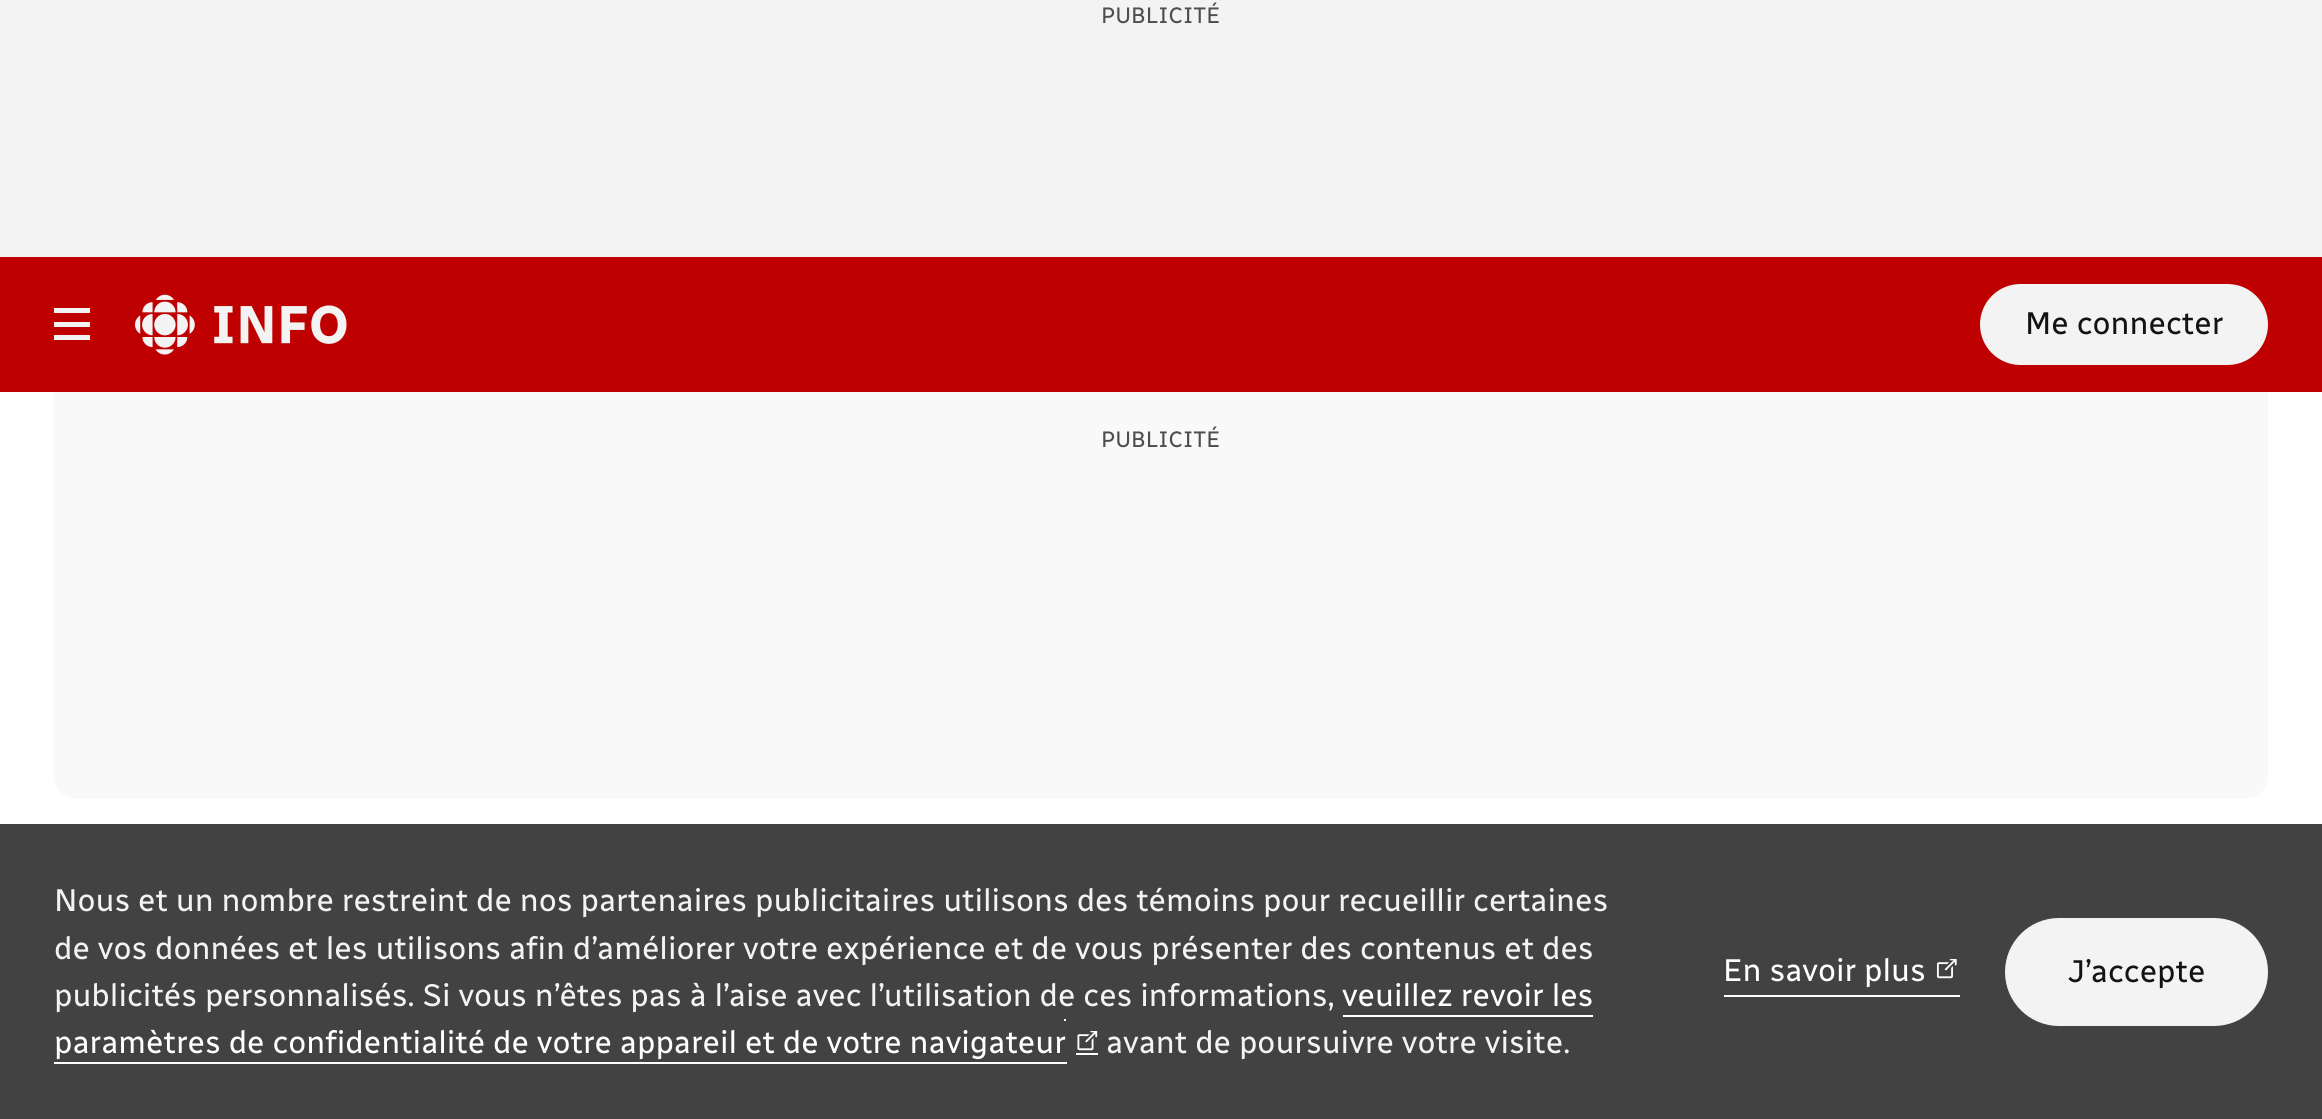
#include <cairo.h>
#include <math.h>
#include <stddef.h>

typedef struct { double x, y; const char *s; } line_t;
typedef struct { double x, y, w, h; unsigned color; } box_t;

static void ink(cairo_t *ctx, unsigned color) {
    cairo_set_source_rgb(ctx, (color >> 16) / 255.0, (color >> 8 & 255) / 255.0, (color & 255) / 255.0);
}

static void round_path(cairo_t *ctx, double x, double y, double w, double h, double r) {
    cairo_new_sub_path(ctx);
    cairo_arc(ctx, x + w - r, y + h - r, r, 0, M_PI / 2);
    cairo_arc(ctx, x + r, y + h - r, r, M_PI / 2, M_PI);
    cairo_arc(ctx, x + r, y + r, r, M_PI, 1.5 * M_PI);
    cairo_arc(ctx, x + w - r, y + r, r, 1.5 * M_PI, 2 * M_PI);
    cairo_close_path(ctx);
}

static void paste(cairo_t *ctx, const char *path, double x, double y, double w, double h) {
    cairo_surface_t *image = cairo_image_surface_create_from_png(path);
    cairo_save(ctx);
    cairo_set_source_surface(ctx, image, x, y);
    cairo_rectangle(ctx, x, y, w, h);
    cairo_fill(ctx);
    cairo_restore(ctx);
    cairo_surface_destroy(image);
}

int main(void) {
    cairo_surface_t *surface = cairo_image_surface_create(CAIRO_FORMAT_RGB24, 2322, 1119);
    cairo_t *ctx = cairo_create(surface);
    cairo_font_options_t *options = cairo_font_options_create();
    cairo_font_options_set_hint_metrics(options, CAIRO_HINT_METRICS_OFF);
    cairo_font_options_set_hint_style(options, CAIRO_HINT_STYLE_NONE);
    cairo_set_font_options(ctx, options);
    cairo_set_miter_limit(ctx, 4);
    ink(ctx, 0xFFFFFF);
    cairo_paint(ctx);
    ink(ctx, 0xF9F9F9);
    round_path(ctx, 54, 146, 2214, 653, 23);
    cairo_fill(ctx);
    ink(ctx, 0xF3F3F3);
    cairo_rectangle(ctx, 0, 0, 2322, 257);
    cairo_fill(ctx);
    cairo_select_font_face(ctx, "Radio Canada", CAIRO_FONT_SLANT_NORMAL, CAIRO_FONT_WEIGHT_NORMAL);
    cairo_set_font_size(ctx, 22.5);
    ink(ctx, 0x4E4E4E);
    cairo_move_to(ctx, 1101, 23);
    cairo_show_text(ctx, "PUBLICITÉ");
    {
        static const box_t items[] = {
            {0, 257, 2322, 135, 0xBE0000},
            {54, 308, 36, 5, 0xF3F3F3},
            {54, 322, 36, 5, 0xF3F3F3},
            {54, 335, 36, 5, 0xF3F3F3},
        };
        for (size_t i = 0; i < sizeof items / sizeof *items; i++) {
            ink(ctx, items[i].color);
            cairo_rectangle(ctx, items[i].x, items[i].y, items[i].w, items[i].h);
            cairo_fill(ctx);
        }
    }
    paste(ctx, "media/1.png", 135, 294, 212, 61);
    round_path(ctx, 1980, 284, 288, 81, 40.5);
    cairo_fill(ctx);
    cairo_set_font_size(ctx, 31.5);
    ink(ctx, 0x131313);
    cairo_move_to(ctx, 2025, 334);
    cairo_show_text(ctx, "Me connecter");
    cairo_set_font_size(ctx, 22.5);
    ink(ctx, 0x4E4E4E);
    cairo_move_to(ctx, 1101, 447);
    cairo_show_text(ctx, "PUBLICITÉ");
    ink(ctx, 0x424242);
    cairo_rectangle(ctx, 0, 824, 2322, 295);
    cairo_fill(ctx);
    cairo_set_font_size(ctx, 31.5);
    ink(ctx, 0xF3F3F3);
    {
        static const line_t items[] = {
            {54, 911, "Nous et un nombre restreint de nos partenaires publicitaires utilisons des témoins pour recueillir certaines"},
            {54, 959, "de vos données et les utilisons afin d’améliorer votre expérience et de vous présenter des contenus et des"},
            {54, 1006, "publicités personnalisés. Si vous n’êtes pas à l’aise avec l’utilisation de ces informations,"},
        };
        for (size_t i = 0; i < sizeof items / sizeof *items; i++) {
            cairo_move_to(ctx, items[i].x, items[i].y);
            cairo_show_text(ctx, items[i].s);
        }
    }
    ink(ctx, 0xFFFFFF);
    cairo_move_to(ctx, 1342, 1006);
    cairo_show_text(ctx, "veuillez revoir les");
    cairo_rectangle(ctx, 1343, 1015, 250, 2);
    cairo_fill(ctx);
    cairo_move_to(ctx, 54, 1053);
    cairo_show_text(ctx, "paramètres de confidentialité de votre appareil et de votre navigateur");
    {
        static const box_t items[] = {
            {54, 1062, 1013, 2, 0xFFFFFF},
            {1064, 1019, 2, 2, 0xFFFFFF},
            {1076, 1053, 22, 2, 0xFFFFFF},
        };
        for (size_t i = 0; i < sizeof items / sizeof *items; i++) {
            ink(ctx, items[i].color);
            cairo_rectangle(ctx, items[i].x, items[i].y, items[i].w, items[i].h);
            cairo_fill(ctx);
        }
    }
    paste(ctx, "media/2.png", 1077, 1031, 21, 20);
    ink(ctx, 0xF3F3F3);
    cairo_move_to(ctx, 1106, 1053);
    cairo_show_text(ctx, "avant de poursuivre votre visite.");
    ink(ctx, 0xFFFFFF);
    cairo_rectangle(ctx, 1724, 995, 236, 2);
    cairo_fill(ctx);
    cairo_move_to(ctx, 1723, 981);
    cairo_show_text(ctx, "En savoir plus");
    paste(ctx, "media/3.png", 1936, 959, 21, 20);
    ink(ctx, 0xF3F3F3);
    round_path(ctx, 2005, 918, 263, 108, 54);
    cairo_fill(ctx);
    ink(ctx, 0x131313);
    cairo_move_to(ctx, 2067, 982);
    cairo_show_text(ctx, "J’accepte");
    cairo_surface_write_to_png(surface, "image.png");
    cairo_font_options_destroy(options);
    cairo_destroy(ctx);
    cairo_surface_destroy(surface);
    return 0;
}
